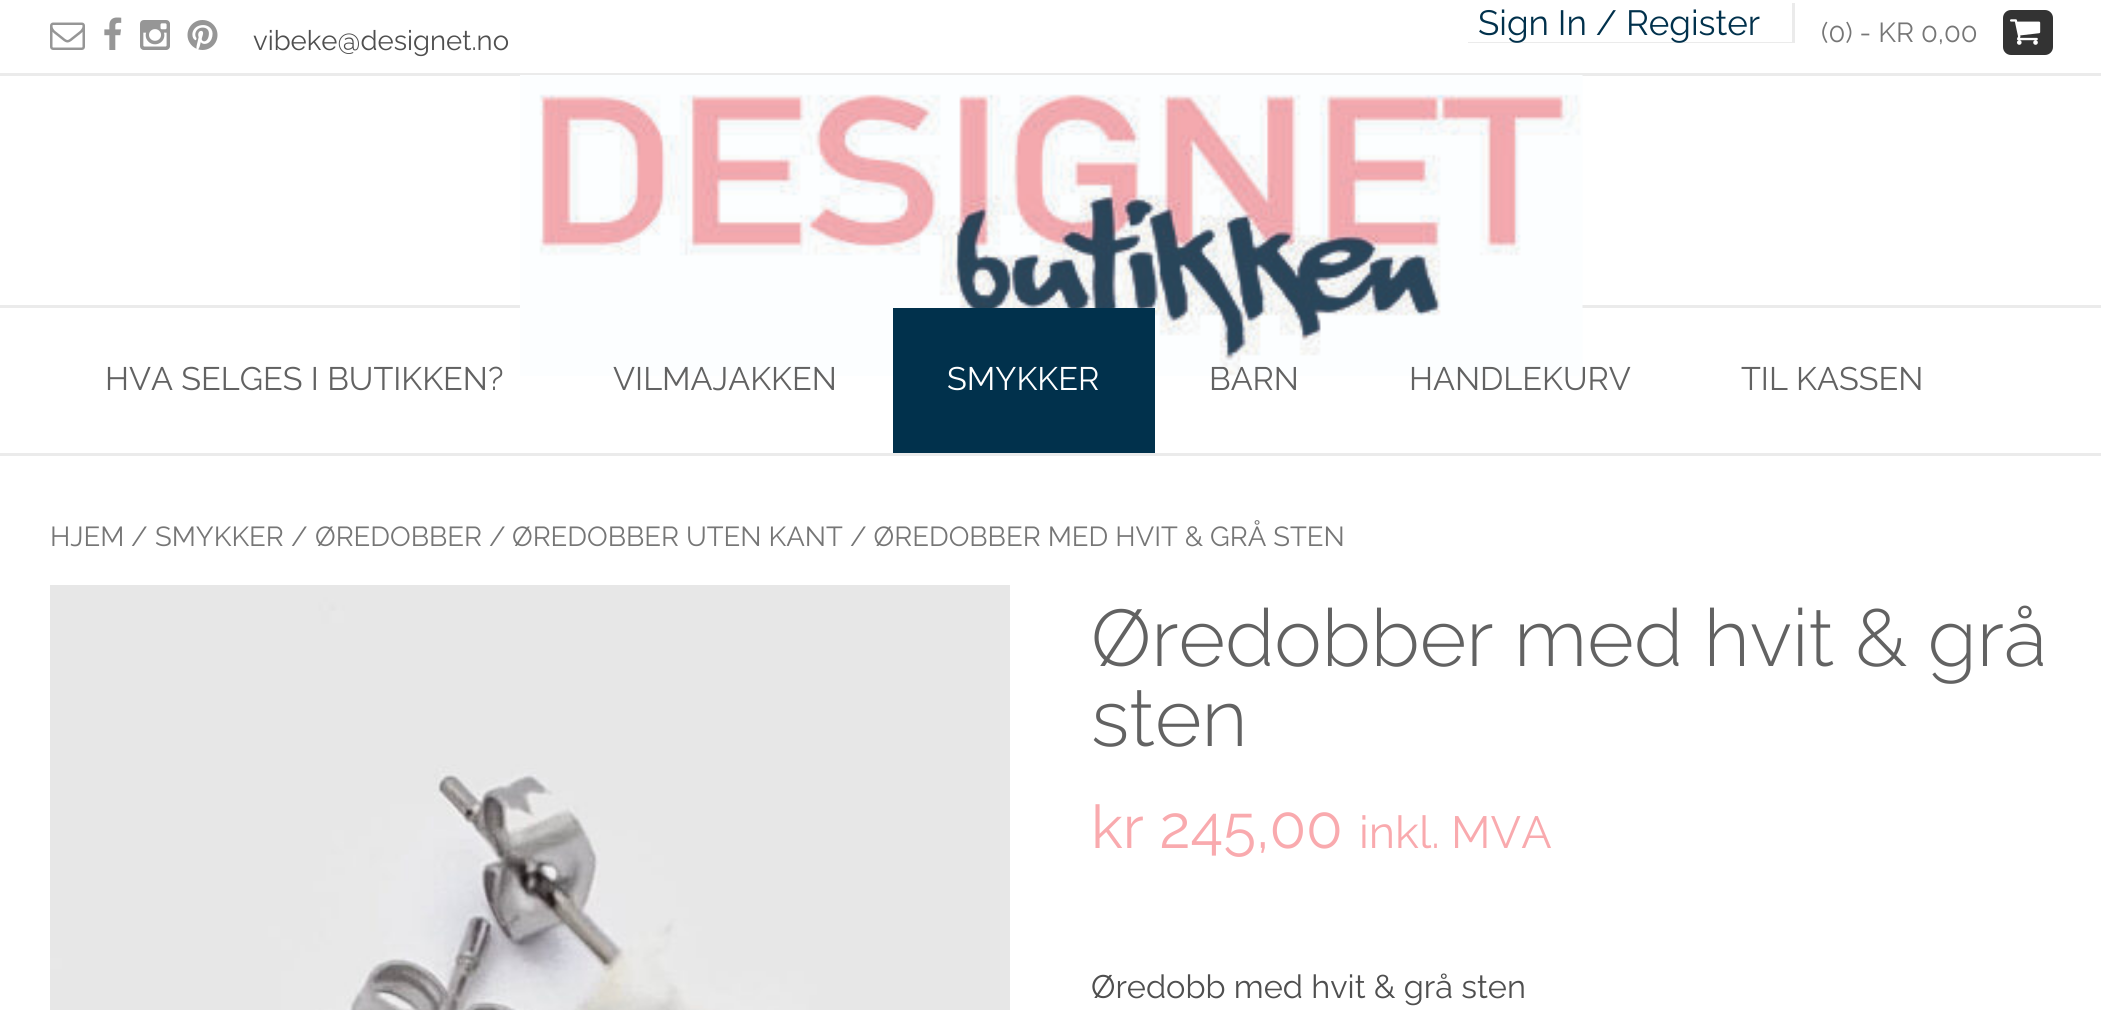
#include <cairo.h>
#include <math.h>
#include <stddef.h>

typedef struct { double x, y; const char *s; } line_t;

static void ink(cairo_t *ctx, unsigned color) {
    cairo_set_source_rgb(ctx, (color >> 16) / 255.0, (color >> 8 & 255) / 255.0, (color & 255) / 255.0);
}

static void round_path(cairo_t *ctx, double x, double y, double w, double h, double r) {
    cairo_new_sub_path(ctx);
    cairo_arc(ctx, x + w - r, y + h - r, r, 0, M_PI / 2);
    cairo_arc(ctx, x + r, y + h - r, r, M_PI / 2, M_PI);
    cairo_arc(ctx, x + r, y + r, r, M_PI, 1.5 * M_PI);
    cairo_arc(ctx, x + w - r, y + r, r, 1.5 * M_PI, 2 * M_PI);
    cairo_close_path(ctx);
}

static void paste(cairo_t *ctx, const char *path, double x, double y, double w, double h) {
    cairo_surface_t *image = cairo_image_surface_create_from_png(path);
    cairo_save(ctx);
    cairo_set_source_surface(ctx, image, x, y);
    cairo_rectangle(ctx, x, y, w, h);
    cairo_fill(ctx);
    cairo_restore(ctx);
    cairo_surface_destroy(image);
}

int main(void) {
    cairo_surface_t *surface = cairo_image_surface_create(CAIRO_FORMAT_RGB24, 2101, 1010);
    cairo_t *ctx = cairo_create(surface);
    cairo_font_options_t *options = cairo_font_options_create();
    cairo_font_options_set_hint_metrics(options, CAIRO_HINT_METRICS_OFF);
    cairo_font_options_set_hint_style(options, CAIRO_HINT_STYLE_NONE);
    cairo_set_font_options(ctx, options);
    cairo_set_miter_limit(ctx, 4);
    ink(ctx, 0xFFFFFF);
    cairo_paint(ctx);
    cairo_set_source_rgba(ctx, 0, 0, 0, 0.08);
    cairo_rectangle(ctx, 0, 453, 2101, 3);
    cairo_fill(ctx);
    ink(ctx, 0xEBEBEB);
    cairo_rectangle(ctx, 0, 73, 2101, 3);
    cairo_fill(ctx);
    paste(ctx, "media/1.png", 50, 22, 35, 28);
    paste(ctx, "media/2.png", 104, 17, 18, 33);
    paste(ctx, "media/3.png", 140, 20, 30, 30);
    paste(ctx, "media/4.png", 187, 20, 31, 30);
    cairo_select_font_face(ctx, "Raleway", CAIRO_FONT_SLANT_NORMAL, CAIRO_FONT_WEIGHT_NORMAL);
    cairo_set_font_size(ctx, 27.5);
    ink(ctx, 0x4F4F4F);
    cairo_move_to(ctx, 253, 50);
    cairo_show_text(ctx, "vibeke@designet.no");
    ink(ctx, 0xEBEBEB);
    cairo_new_path(ctx);
    cairo_move_to(ctx, 1468, 42);
    cairo_line_to(ctx, 1468, 43);
    cairo_line_to(ctx, 1795, 43);
    cairo_line_to(ctx, 1795, 3);
    cairo_line_to(ctx, 1792, 3);
    cairo_line_to(ctx, 1792, 42);
    cairo_close_path(ctx);
    cairo_fill(ctx);
    cairo_set_font_size(ctx, 35);
    ink(ctx, 0x01314C);
    cairo_move_to(ctx, 1478, 35);
    cairo_show_text(ctx, "Sign In / Register");
    cairo_set_font_size(ctx, 27.5);
    ink(ctx, 0x767676);
    cairo_move_to(ctx, 1821, 42);
    cairo_show_text(ctx, "(0) - KR 0,00");
    ink(ctx, 0x333333);
    round_path(ctx, 2003, 10, 50, 45, 8);
    cairo_fill(ctx);
    paste(ctx, "media/5.png", 2010, 19, 31, 26);
    ink(ctx, 0xEBEBEB);
    cairo_new_path(ctx);
    cairo_move_to(ctx, 0, 305);
    cairo_line_to(ctx, 0, 308);
    cairo_line_to(ctx, 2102, 308);
    cairo_line_to(ctx, 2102, 450);
    cairo_line_to(ctx, 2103, 450);
    cairo_line_to(ctx, 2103, 305);
    cairo_close_path(ctx);
    cairo_fill(ctx);
    paste(ctx, "media/6.png", 520, 75, 1063, 301);
    cairo_set_font_size(ctx, 32.5);
    ink(ctx, 0x626262);
    cairo_move_to(ctx, 105, 390);
    cairo_show_text(ctx, "HVA SELGES I BUTIKKEN?");
    cairo_move_to(ctx, 613, 390);
    cairo_show_text(ctx, "VILMAJAKKEN");
    ink(ctx, 0x01314C);
    cairo_rectangle(ctx, 893, 308, 262, 145);
    cairo_fill(ctx);
    ink(ctx, 0xFFFFFF);
    cairo_move_to(ctx, 947, 390);
    cairo_show_text(ctx, "SMYKKER");
    ink(ctx, 0x626262);
    {
        static const line_t items[] = {
            {1209, 390, "BARN"},
            {1409, 390, "HANDLEKURV"},
            {1741, 390, "TIL KASSEN"},
        };
        for (size_t i = 0; i < sizeof items / sizeof *items; i++) {
            cairo_move_to(ctx, items[i].x, items[i].y);
            cairo_show_text(ctx, items[i].s);
        }
    }
    cairo_set_font_size(ctx, 27.5);
    ink(ctx, 0x767676);
    {
        static const line_t items[] = {
            {50, 546, "HJEM"},
            {131, 546, "/"},
            {155, 546, "SMYKKER"},
            {291, 546, "/"},
            {315, 546, "ØREDOBBER"},
            {489, 546, "/"},
            {512, 546, "ØREDOBBER UTEN KANT"},
            {850, 546, "/ ØREDOBBER MED HVIT & GRÅ STEN"},
        };
        for (size_t i = 0; i < sizeof items / sizeof *items; i++) {
            cairo_move_to(ctx, items[i].x, items[i].y);
            cairo_show_text(ctx, items[i].s);
        }
    }
    paste(ctx, "media/7.png", 50, 585, 960, 425);
    cairo_select_font_face(ctx, "Raleway Light", CAIRO_FONT_SLANT_NORMAL, CAIRO_FONT_WEIGHT_NORMAL);
    cairo_set_font_size(ctx, 80);
    ink(ctx, 0x626262);
    cairo_move_to(ctx, 1091, 666);
    cairo_show_text(ctx, "Øredobber med hvit & grå");
    cairo_move_to(ctx, 1091, 746);
    cairo_show_text(ctx, "sten");
    cairo_select_font_face(ctx, "Raleway", CAIRO_FONT_SLANT_NORMAL, CAIRO_FONT_WEIGHT_NORMAL);
    cairo_set_font_size(ctx, 60);
    ink(ctx, 0xF9AAAE);
    cairo_move_to(ctx, 1091, 848);
    cairo_show_text(ctx, "kr 245,00");
    cairo_set_font_size(ctx, 45);
    cairo_move_to(ctx, 1359, 848);
    cairo_show_text(ctx, "inkl. MVA");
    cairo_set_font_size(ctx, 32.5);
    ink(ctx, 0x4F4F4F);
    cairo_move_to(ctx, 1091, 998);
    cairo_show_text(ctx, "Øredobb med hvit & grå sten");
    cairo_surface_write_to_png(surface, "image.png");
    cairo_font_options_destroy(options);
    cairo_destroy(ctx);
    cairo_surface_destroy(surface);
    return 0;
}
